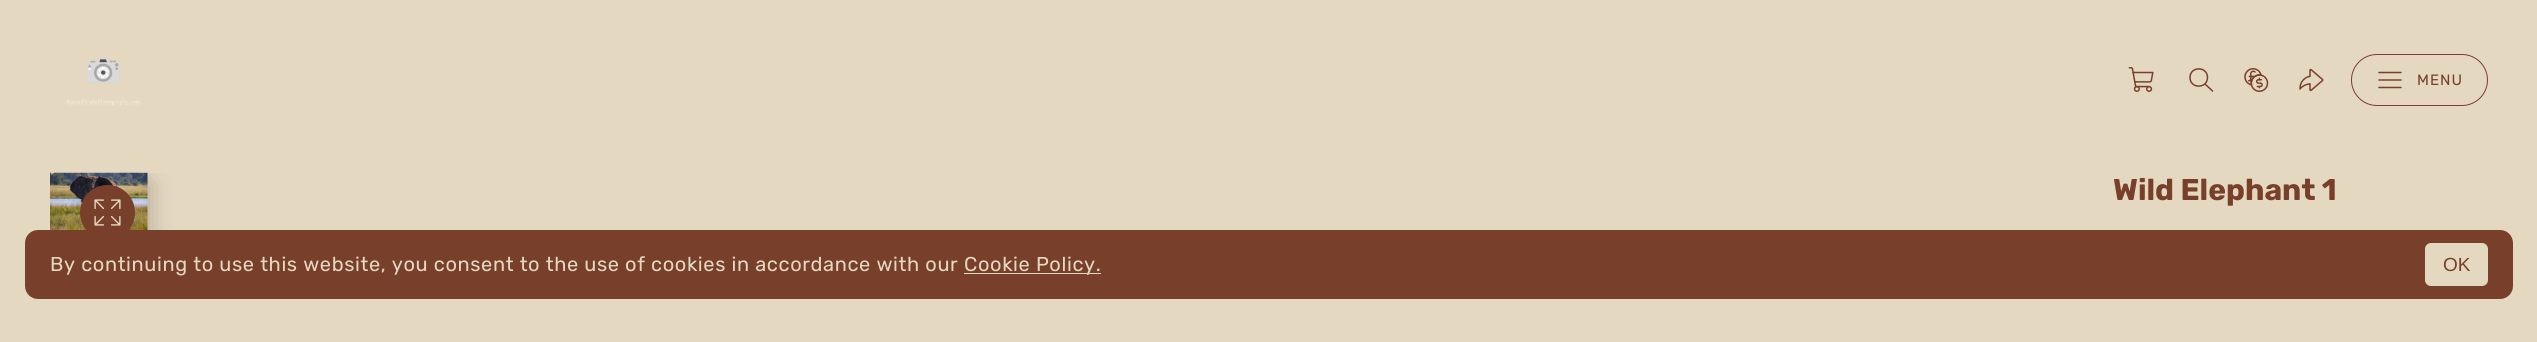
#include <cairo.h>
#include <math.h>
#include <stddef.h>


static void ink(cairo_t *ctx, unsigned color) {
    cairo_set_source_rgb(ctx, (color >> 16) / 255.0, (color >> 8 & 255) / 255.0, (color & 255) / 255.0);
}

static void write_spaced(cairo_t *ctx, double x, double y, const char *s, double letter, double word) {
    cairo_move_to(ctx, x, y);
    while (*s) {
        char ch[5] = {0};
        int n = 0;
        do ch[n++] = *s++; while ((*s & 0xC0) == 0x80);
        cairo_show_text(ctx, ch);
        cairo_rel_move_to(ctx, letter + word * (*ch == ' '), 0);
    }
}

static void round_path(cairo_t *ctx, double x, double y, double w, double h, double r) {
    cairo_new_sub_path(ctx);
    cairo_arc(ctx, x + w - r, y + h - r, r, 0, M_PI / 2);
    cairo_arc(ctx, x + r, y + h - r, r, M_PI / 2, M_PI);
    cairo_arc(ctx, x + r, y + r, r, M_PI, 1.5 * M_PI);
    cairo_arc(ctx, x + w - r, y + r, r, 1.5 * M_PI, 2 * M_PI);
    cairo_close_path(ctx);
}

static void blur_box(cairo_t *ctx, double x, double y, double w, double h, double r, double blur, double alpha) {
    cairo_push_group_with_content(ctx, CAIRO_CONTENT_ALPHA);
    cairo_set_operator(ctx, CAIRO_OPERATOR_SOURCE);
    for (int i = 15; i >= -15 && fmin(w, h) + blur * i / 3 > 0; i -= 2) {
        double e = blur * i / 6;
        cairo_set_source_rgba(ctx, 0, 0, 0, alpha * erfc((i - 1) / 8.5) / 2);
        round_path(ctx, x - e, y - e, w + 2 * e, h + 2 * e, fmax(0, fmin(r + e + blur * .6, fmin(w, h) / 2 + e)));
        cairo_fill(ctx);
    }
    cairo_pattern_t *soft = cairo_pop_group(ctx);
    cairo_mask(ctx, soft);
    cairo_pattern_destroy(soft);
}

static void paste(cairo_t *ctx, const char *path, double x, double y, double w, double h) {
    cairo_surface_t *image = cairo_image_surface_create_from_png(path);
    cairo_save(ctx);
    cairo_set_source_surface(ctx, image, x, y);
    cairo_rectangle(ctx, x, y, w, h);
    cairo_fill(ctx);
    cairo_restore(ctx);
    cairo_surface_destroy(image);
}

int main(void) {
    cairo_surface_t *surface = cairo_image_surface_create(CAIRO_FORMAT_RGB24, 2537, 342);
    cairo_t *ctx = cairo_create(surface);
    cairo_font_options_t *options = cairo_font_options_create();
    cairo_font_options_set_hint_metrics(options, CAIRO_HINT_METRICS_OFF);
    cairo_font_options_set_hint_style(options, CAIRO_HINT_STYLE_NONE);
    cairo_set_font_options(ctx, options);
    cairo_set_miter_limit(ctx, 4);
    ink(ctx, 0xE4D8C1);
    cairo_paint(ctx);
    paste(ctx, "media/1.png", 67, 45, 73, 61);
    paste(ctx, "media/2.png", 2128, 67, 26, 25);
    cairo_new_path(ctx);
    cairo_move_to(ctx, 2212.5, 91);
    cairo_line_to(ctx, 2205, 84);
    cairo_move_to(ctx, 2207.5, 77.5);
    cairo_curve_to(ctx, 2207.5, 89, 2190, 89, 2190, 77.5);
    cairo_curve_to(ctx, 2190, 66, 2207.5, 66, 2207.5, 77.5);
    cairo_close_path(ctx);
    ink(ctx, 0x78402B);
    cairo_set_line_width(ctx, 1.5);
    cairo_set_line_cap(ctx, CAIRO_LINE_CAP_ROUND);
    cairo_set_line_join(ctx, CAIRO_LINE_JOIN_ROUND);
    cairo_stroke(ctx);
    paste(ctx, "media/3.png", 2244, 68, 25, 24);
    paste(ctx, "media/4.png", 2299, 68, 25, 24);
    round_path(ctx, 2351.5, 54.5, 136, 51, 25.5);
    cairo_set_line_width(ctx, 1);
    cairo_set_line_cap(ctx, CAIRO_LINE_CAP_BUTT);
    cairo_set_line_join(ctx, CAIRO_LINE_JOIN_MITER);
    cairo_stroke(ctx);
    cairo_new_path(ctx);
    cairo_move_to(ctx, 2379, 80);
    cairo_line_to(ctx, 2401, 80);
    cairo_move_to(ctx, 2379, 72.5);
    cairo_line_to(ctx, 2401, 72.5);
    cairo_move_to(ctx, 2379, 87.5);
    cairo_line_to(ctx, 2401, 87.5);
    cairo_set_line_width(ctx, 1.5);
    cairo_set_line_cap(ctx, CAIRO_LINE_CAP_ROUND);
    cairo_set_line_join(ctx, CAIRO_LINE_JOIN_ROUND);
    cairo_stroke(ctx);
    cairo_select_font_face(ctx, "Rubik", CAIRO_FONT_SLANT_NORMAL, CAIRO_FONT_WEIGHT_NORMAL);
    cairo_set_font_size(ctx, 15);
    write_spaced(ctx, 2417, 85, "MENU", 1, 0);
    cairo_save(ctx);
    cairo_rectangle(ctx, 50, 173, 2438, 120);
    cairo_clip(ctx);
    ink(ctx, 0x000000);
    blur_box(ctx, 50, 183, 98, 65, 0, 12.5, 0.25);
    cairo_restore(ctx);
    paste(ctx, "media/5.png", 50, 172, 98, 58);
    cairo_arc(ctx, 107.5, 212.5, 27.5, 0, 2 * M_PI);
    cairo_fill(ctx);
    paste(ctx, "media/6.png", 94, 199, 27, 27);
    cairo_select_font_face(ctx, "Rubik", CAIRO_FONT_SLANT_NORMAL, CAIRO_FONT_WEIGHT_BOLD);
    cairo_set_font_size(ctx, 30);
    cairo_move_to(ctx, 2113, 200);
    cairo_show_text(ctx, "Wild Elephant 1");
    round_path(ctx, 25, 230, 2488, 69, 13);
    cairo_fill(ctx);
    cairo_select_font_face(ctx, "Rubik", CAIRO_FONT_SLANT_NORMAL, CAIRO_FONT_WEIGHT_NORMAL);
    cairo_set_font_size(ctx, 20);
    ink(ctx, 0xE4D8C1);
    write_spaced(ctx, 50, 271, "By continuing to use this website, you consent to the use of cookies in accordance with our", 0.62, 0);
    cairo_rectangle(ctx, 964, 273, 137, 1);
    cairo_fill(ctx);
    write_spaced(ctx, 964, 271, "Cookie Policy.", 0.62, 0);
    round_path(ctx, 2425, 243, 63, 43, 6);
    cairo_fill(ctx);
    cairo_select_font_face(ctx, "Liberation Sans", CAIRO_FONT_SLANT_NORMAL, CAIRO_FONT_WEIGHT_NORMAL);
    cairo_set_font_size(ctx, 19);
    ink(ctx, 0x78402B);
    cairo_move_to(ctx, 2443, 271);
    cairo_show_text(ctx, "OK");
    cairo_surface_write_to_png(surface, "image.png");
    cairo_font_options_destroy(options);
    cairo_destroy(ctx);
    cairo_surface_destroy(surface);
    return 0;
}
